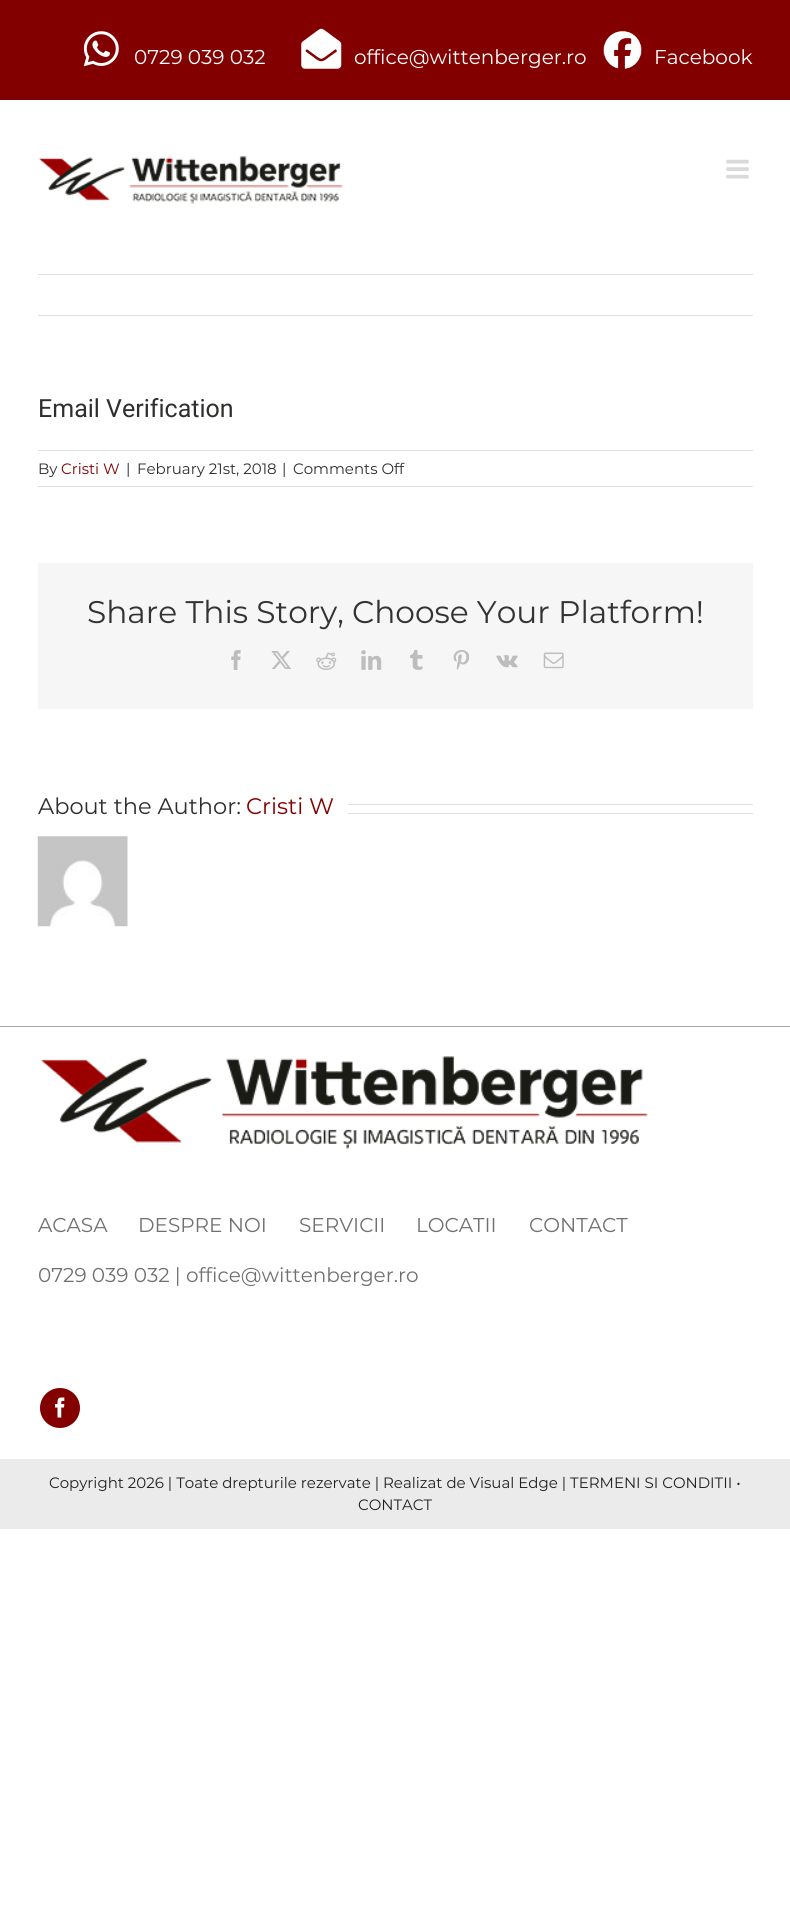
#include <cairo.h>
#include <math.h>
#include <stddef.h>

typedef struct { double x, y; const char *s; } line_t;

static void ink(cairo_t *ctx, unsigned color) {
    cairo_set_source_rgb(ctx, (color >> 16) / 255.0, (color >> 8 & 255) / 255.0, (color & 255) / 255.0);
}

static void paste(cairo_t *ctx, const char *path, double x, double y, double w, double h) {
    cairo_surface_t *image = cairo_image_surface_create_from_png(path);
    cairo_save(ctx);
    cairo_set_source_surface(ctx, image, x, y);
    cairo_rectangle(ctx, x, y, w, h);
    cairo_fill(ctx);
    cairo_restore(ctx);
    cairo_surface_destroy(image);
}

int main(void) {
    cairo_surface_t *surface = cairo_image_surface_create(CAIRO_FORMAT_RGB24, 790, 1932);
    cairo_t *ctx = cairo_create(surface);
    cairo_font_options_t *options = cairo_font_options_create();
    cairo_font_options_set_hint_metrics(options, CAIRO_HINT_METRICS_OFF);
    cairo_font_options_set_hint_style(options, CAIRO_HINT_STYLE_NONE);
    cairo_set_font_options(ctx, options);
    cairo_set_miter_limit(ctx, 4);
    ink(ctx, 0xFFFFFF);
    cairo_paint(ctx);
    ink(ctx, 0x830000);
    cairo_rectangle(ctx, 0, 0, 790, 100);
    cairo_fill(ctx);
    paste(ctx, "media/1.png", 83, 31, 36, 36);
    cairo_select_font_face(ctx, "Montserrat", CAIRO_FONT_SLANT_NORMAL, CAIRO_FONT_WEIGHT_NORMAL);
    cairo_set_font_size(ctx, 20);
    ink(ctx, 0xFFFFFF);
    cairo_move_to(ctx, 134, 64);
    cairo_show_text(ctx, "0729 039 032");
    paste(ctx, "media/2.png", 301, 28, 41, 41);
    cairo_move_to(ctx, 354, 64);
    cairo_show_text(ctx, "office@wittenberger.ro");
    paste(ctx, "media/3.png", 603, 31, 39, 38);
    cairo_move_to(ctx, 654, 64);
    cairo_show_text(ctx, "Facebook");
    paste(ctx, "media/4.png", 38, 156, 305, 48);
    paste(ctx, "media/5.png", 726, 159, 23, 20);
    ink(ctx, 0xE0DEDE);
    cairo_rectangle(ctx, 38, 274, 715, 1);
    cairo_fill(ctx);
    cairo_rectangle(ctx, 38, 315, 715, 1);
    cairo_fill(ctx);
    cairo_select_font_face(ctx, "Roboto", CAIRO_FONT_SLANT_NORMAL, CAIRO_FONT_WEIGHT_NORMAL);
    cairo_set_font_size(ctx, 25);
    ink(ctx, 0x2E2E2D);
    cairo_move_to(ctx, 38, 417);
    cairo_show_text(ctx, "Email Verification");
    ink(ctx, 0xE0DEDE);
    cairo_rectangle(ctx, 38, 450, 715, 1);
    cairo_fill(ctx);
    cairo_rectangle(ctx, 38, 486, 715, 1);
    cairo_fill(ctx);
    cairo_select_font_face(ctx, "Montserrat", CAIRO_FONT_SLANT_NORMAL, CAIRO_FONT_WEIGHT_NORMAL);
    cairo_set_font_size(ctx, 15);
    ink(ctx, 0x2E2E2D);
    cairo_move_to(ctx, 38, 474);
    cairo_show_text(ctx, "By");
    ink(ctx, 0x830000);
    cairo_move_to(ctx, 61, 474);
    cairo_show_text(ctx, "Cristi W");
    ink(ctx, 0x2E2E2D);
    {
        static const line_t items[] = {
            {126, 474, "|"},
            {137, 474, "February 21st, 2018"},
            {282, 474, "|"},
            {293, 474, "Comments Off"},
        };
        for (size_t i = 0; i < sizeof items / sizeof *items; i++) {
            cairo_move_to(ctx, items[i].x, items[i].y);
            cairo_show_text(ctx, items[i].s);
        }
    }
    ink(ctx, 0xF6F6F6);
    cairo_rectangle(ctx, 38, 563, 715, 146);
    cairo_fill(ctx);
    cairo_set_font_size(ctx, 31.25);
    ink(ctx, 0x333333);
    cairo_move_to(ctx, 87, 623);
    cairo_show_text(ctx, "Share This Story, Choose Your Platform!");
    paste(ctx, "media/6.png", 231, 650, 10, 20);
    paste(ctx, "media/7.png", 271, 651, 20, 18);
    paste(ctx, "media/8.png", 316, 652, 21, 18);
    paste(ctx, "media/9.png", 361, 650, 21, 20);
    paste(ctx, "media/10.png", 410, 650, 13, 20);
    paste(ctx, "media/11.png", 453, 650, 17, 20);
    paste(ctx, "media/12.png", 496, 655, 22, 13);
    paste(ctx, "media/13.png", 543, 652, 21, 17);
    cairo_set_font_size(ctx, 22.5);
    ink(ctx, 0x2E2E2D);
    cairo_move_to(ctx, 38, 814);
    cairo_show_text(ctx, "About the Author:");
    ink(ctx, 0x830000);
    cairo_move_to(ctx, 246, 814);
    cairo_show_text(ctx, "Cristi W");
    ink(ctx, 0xE0DEDE);
    cairo_rectangle(ctx, 348, 804, 405, 1);
    cairo_fill(ctx);
    cairo_rectangle(ctx, 348, 813, 405, 1);
    cairo_fill(ctx);
    paste(ctx, "media/14.png", 37, 836, 91, 91);
    ink(ctx, 0xADA4A4);
    cairo_rectangle(ctx, 0, 1026, 790, 1);
    cairo_fill(ctx);
    paste(ctx, "media/15.png", 40, 1056, 608, 93);
    cairo_set_font_size(ctx, 20);
    ink(ctx, 0x726F6F);
    {
        static const line_t items[] = {
            {38, 1232, "ACASA"},
            {138, 1232, "DESPRE NOI"},
            {299, 1232, "SERVICII"},
            {416, 1232, "LOCATII"},
            {529, 1232, "CONTACT"},
            {38, 1282, "0729 039 032 | office@wittenberger.ro"},
        };
        for (size_t i = 0; i < sizeof items / sizeof *items; i++) {
            cairo_move_to(ctx, items[i].x, items[i].y);
            cairo_show_text(ctx, items[i].s);
        }
    }
    ink(ctx, 0x830000);
    cairo_new_path(ctx);
    cairo_arc(ctx, 60, 1408, 20, 0, 2 * M_PI);
    cairo_fill(ctx);
    paste(ctx, "media/16.png", 55, 1397, 10, 21);
    ink(ctx, 0xEBEBEB);
    cairo_rectangle(ctx, 0, 1459, 790, 70);
    cairo_fill(ctx);
    cairo_set_font_size(ctx, 15);
    ink(ctx, 0x20201E);
    cairo_move_to(ctx, 49, 1488);
    cairo_show_text(ctx, "Copyright 2026 | Toate drepturile rezervate | Realizat de Visual Edge | TERMENI SI CONDITII •");
    cairo_move_to(ctx, 358, 1510);
    cairo_show_text(ctx, "CONTACT");
    cairo_surface_write_to_png(surface, "image.png");
    cairo_font_options_destroy(options);
    cairo_destroy(ctx);
    cairo_surface_destroy(surface);
    return 0;
}
